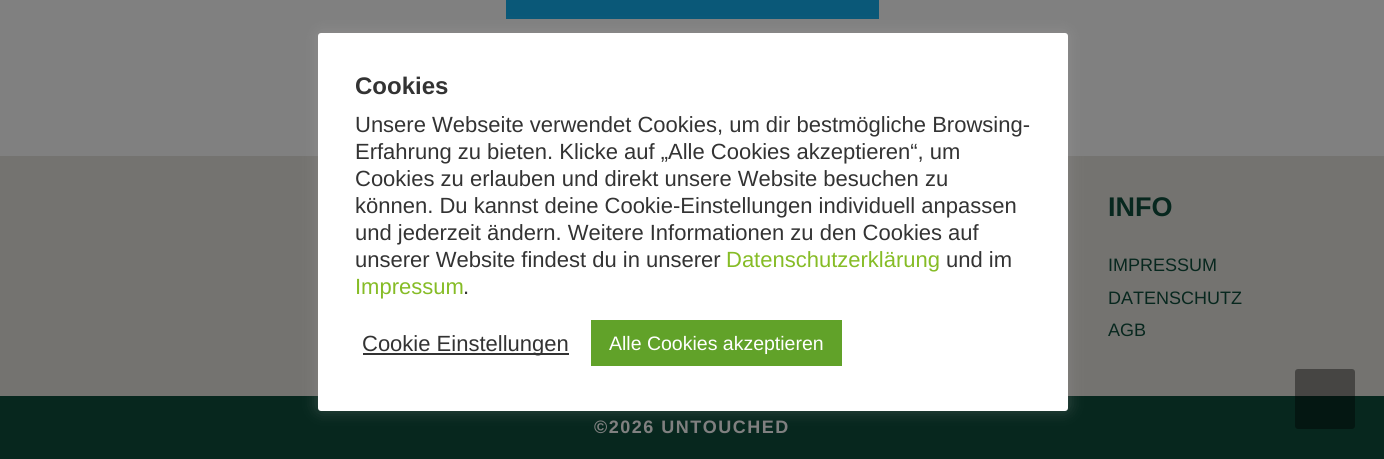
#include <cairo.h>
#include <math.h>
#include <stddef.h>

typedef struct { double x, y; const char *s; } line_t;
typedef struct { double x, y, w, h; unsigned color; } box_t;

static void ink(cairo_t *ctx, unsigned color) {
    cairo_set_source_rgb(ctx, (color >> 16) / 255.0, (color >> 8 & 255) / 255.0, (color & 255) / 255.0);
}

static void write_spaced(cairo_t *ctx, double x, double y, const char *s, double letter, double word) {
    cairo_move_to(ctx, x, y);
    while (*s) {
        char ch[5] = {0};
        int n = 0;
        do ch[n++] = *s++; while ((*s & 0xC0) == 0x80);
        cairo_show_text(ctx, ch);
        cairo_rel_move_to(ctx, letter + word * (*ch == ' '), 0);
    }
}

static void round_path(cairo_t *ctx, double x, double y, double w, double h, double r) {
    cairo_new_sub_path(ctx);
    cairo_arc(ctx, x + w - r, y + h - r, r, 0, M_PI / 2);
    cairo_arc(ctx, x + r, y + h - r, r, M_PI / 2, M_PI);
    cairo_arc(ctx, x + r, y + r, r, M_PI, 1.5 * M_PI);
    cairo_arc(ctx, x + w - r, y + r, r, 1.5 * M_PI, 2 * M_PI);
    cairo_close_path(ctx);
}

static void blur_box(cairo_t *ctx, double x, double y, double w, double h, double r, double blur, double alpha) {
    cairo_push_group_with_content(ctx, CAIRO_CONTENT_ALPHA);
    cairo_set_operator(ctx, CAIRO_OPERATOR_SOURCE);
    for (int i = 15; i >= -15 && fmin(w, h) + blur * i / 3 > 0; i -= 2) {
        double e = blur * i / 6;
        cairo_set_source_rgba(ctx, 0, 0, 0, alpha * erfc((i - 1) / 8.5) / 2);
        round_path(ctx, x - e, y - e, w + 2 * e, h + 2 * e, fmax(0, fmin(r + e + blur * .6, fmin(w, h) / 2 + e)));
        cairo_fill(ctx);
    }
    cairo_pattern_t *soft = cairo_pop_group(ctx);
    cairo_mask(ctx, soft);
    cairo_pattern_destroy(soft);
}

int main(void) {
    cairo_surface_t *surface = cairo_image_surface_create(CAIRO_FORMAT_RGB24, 1384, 459);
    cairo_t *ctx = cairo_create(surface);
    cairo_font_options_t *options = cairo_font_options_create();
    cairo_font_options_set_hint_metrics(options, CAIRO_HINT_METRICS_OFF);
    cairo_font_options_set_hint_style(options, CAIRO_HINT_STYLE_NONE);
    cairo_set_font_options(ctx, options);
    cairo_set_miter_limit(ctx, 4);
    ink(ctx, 0x808080);
    cairo_paint(ctx);
    {
        static const box_t items[] = {
            {506, 0, 373, 19, 0x0A5878},
            {0, 156, 1384, 240, 0x747370},
            {0, 396, 1384, 63, 0x07271E},
        };
        for (size_t i = 0; i < sizeof items / sizeof *items; i++) {
            ink(ctx, items[i].color);
            cairo_rectangle(ctx, items[i].x, items[i].y, items[i].w, items[i].h);
            cairo_fill(ctx);
        }
    }
    ink(ctx, 0xACABAB);
    blur_box(ctx, 318, 32, 750, 378, 3, 7.5, 0.3);
    ink(ctx, 0xFFFFFF);
    round_path(ctx, 318, 33, 750, 378, 3);
    cairo_fill(ctx);
    cairo_select_font_face(ctx, "Liberation Sans", CAIRO_FONT_SLANT_NORMAL, CAIRO_FONT_WEIGHT_BOLD);
    cairo_set_font_size(ctx, 24);
    ink(ctx, 0x333333);
    cairo_move_to(ctx, 355, 94);
    cairo_show_text(ctx, "Cookies");
    cairo_select_font_face(ctx, "Liberation Sans", CAIRO_FONT_SLANT_NORMAL, CAIRO_FONT_WEIGHT_NORMAL);
    cairo_set_font_size(ctx, 22);
    {
        static const line_t items[] = {
            {355, 132, "Unsere Webseite verwendet Cookies, um dir bestmögliche Browsing-"},
            {355, 159, "Erfahrung zu bieten. Klicke auf „Alle Cookies akzeptieren“, um"},
            {355, 186, "Cookies zu erlauben und direkt unsere Website besuchen zu"},
            {355, 213, "können. Du kannst deine Cookie-Einstellungen individuell anpassen"},
            {355, 240, "und jederzeit ändern. Weitere Informationen zu den Cookies auf"},
            {355, 267, "unserer Website findest du in unserer"},
        };
        for (size_t i = 0; i < sizeof items / sizeof *items; i++) {
            cairo_move_to(ctx, items[i].x, items[i].y);
            cairo_show_text(ctx, items[i].s);
        }
    }
    ink(ctx, 0x86BC26);
    cairo_move_to(ctx, 726, 267);
    cairo_show_text(ctx, "Datenschutzerklärung");
    ink(ctx, 0x333333);
    cairo_move_to(ctx, 946, 267);
    cairo_show_text(ctx, "und im");
    ink(ctx, 0x86BC26);
    cairo_move_to(ctx, 355, 294);
    cairo_show_text(ctx, "Impressum");
    ink(ctx, 0x333333);
    cairo_move_to(ctx, 463, 294);
    cairo_show_text(ctx, ".");
    cairo_rectangle(ctx, 363, 353, 206, 2);
    cairo_fill(ctx);
    cairo_move_to(ctx, 362, 351);
    cairo_show_text(ctx, "Cookie Einstellungen");
    ink(ctx, 0x61A229);
    cairo_rectangle(ctx, 591, 320, 251, 46);
    cairo_fill(ctx);
    cairo_set_font_size(ctx, 19.5);
    ink(ctx, 0xFFFFFF);
    cairo_move_to(ctx, 609, 350);
    cairo_show_text(ctx, "Alle Cookies akzeptieren");
    cairo_select_font_face(ctx, "Liberation Sans", CAIRO_FONT_SLANT_NORMAL, CAIRO_FONT_WEIGHT_BOLD);
    cairo_set_font_size(ctx, 27);
    ink(ctx, 0x07271E);
    cairo_move_to(ctx, 1108, 216);
    cairo_show_text(ctx, "INFO");
    cairo_select_font_face(ctx, "Liberation Sans", CAIRO_FONT_SLANT_NORMAL, CAIRO_FONT_WEIGHT_NORMAL);
    cairo_set_font_size(ctx, 18);
    {
        static const line_t items[] = {
            {1108, 271, "IMPRESSUM"},
            {1108, 304, "DATENSCHUTZ"},
            {1108, 336, "AGB"},
        };
        for (size_t i = 0; i < sizeof items / sizeof *items; i++) {
            cairo_move_to(ctx, items[i].x, items[i].y);
            cairo_show_text(ctx, items[i].s);
        }
    }
    cairo_select_font_face(ctx, "Liberation Sans", CAIRO_FONT_SLANT_NORMAL, CAIRO_FONT_WEIGHT_BOLD);
    ink(ctx, 0x808080);
    write_spaced(ctx, 594, 433, "©2026 UNTOUCHED", 1.5, 0);
    cairo_set_source_rgba(ctx, 0, 0, 0, 0.4);
    round_path(ctx, 1295, 369, 60, 60, 3);
    cairo_fill(ctx);
    cairo_surface_write_to_png(surface, "image.png");
    cairo_font_options_destroy(options);
    cairo_destroy(ctx);
    cairo_surface_destroy(surface);
    return 0;
}
